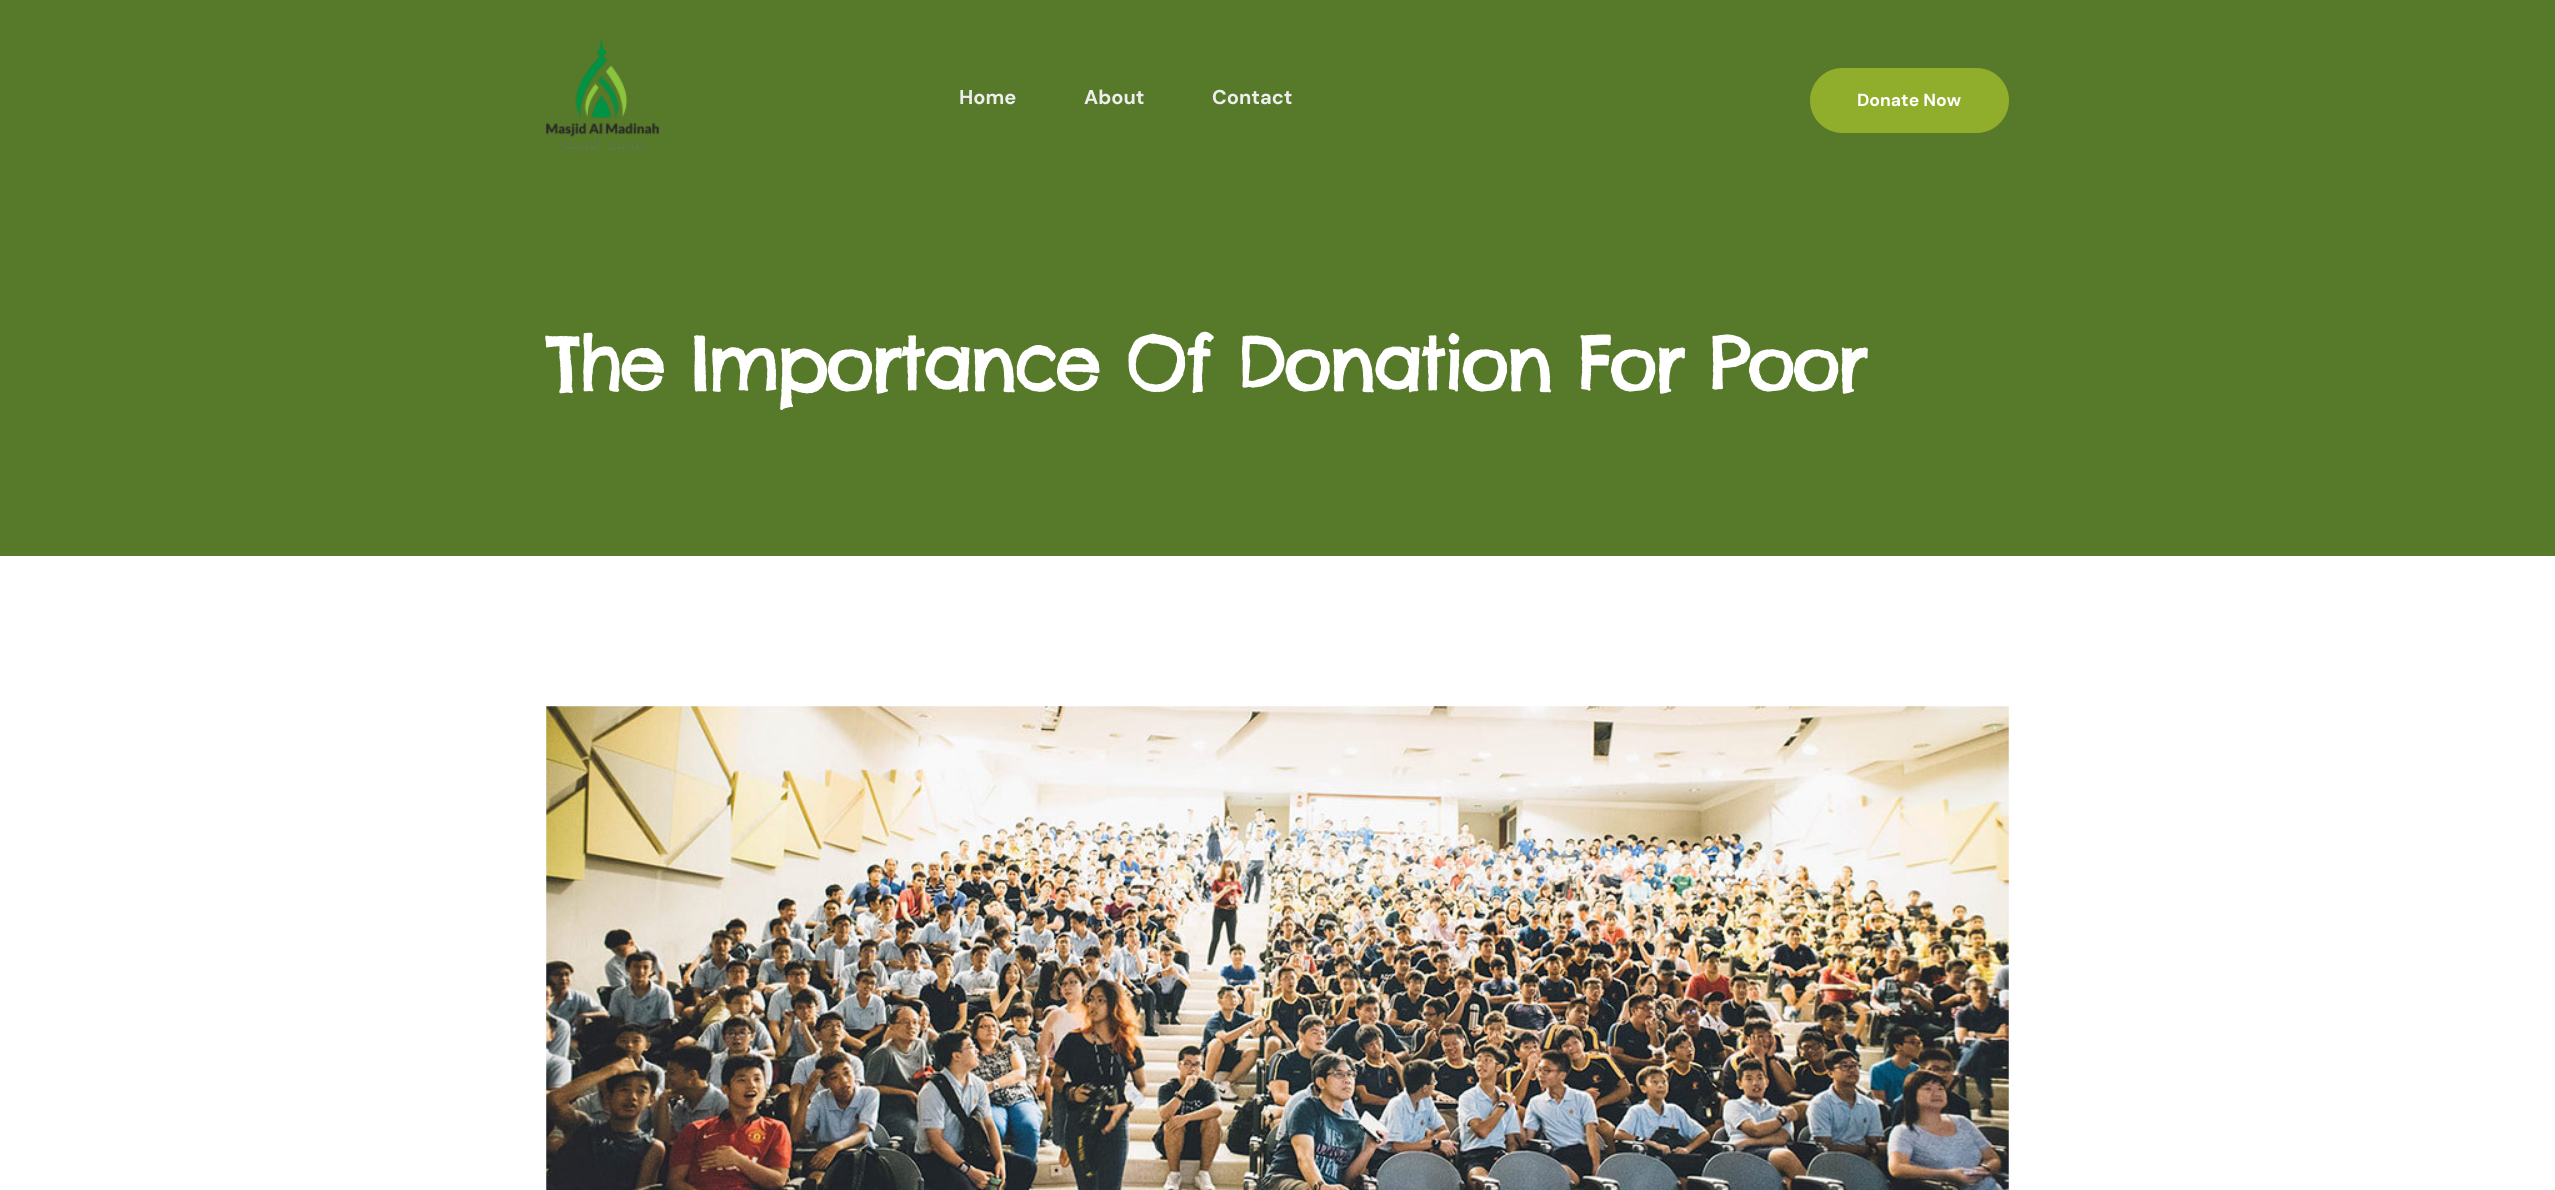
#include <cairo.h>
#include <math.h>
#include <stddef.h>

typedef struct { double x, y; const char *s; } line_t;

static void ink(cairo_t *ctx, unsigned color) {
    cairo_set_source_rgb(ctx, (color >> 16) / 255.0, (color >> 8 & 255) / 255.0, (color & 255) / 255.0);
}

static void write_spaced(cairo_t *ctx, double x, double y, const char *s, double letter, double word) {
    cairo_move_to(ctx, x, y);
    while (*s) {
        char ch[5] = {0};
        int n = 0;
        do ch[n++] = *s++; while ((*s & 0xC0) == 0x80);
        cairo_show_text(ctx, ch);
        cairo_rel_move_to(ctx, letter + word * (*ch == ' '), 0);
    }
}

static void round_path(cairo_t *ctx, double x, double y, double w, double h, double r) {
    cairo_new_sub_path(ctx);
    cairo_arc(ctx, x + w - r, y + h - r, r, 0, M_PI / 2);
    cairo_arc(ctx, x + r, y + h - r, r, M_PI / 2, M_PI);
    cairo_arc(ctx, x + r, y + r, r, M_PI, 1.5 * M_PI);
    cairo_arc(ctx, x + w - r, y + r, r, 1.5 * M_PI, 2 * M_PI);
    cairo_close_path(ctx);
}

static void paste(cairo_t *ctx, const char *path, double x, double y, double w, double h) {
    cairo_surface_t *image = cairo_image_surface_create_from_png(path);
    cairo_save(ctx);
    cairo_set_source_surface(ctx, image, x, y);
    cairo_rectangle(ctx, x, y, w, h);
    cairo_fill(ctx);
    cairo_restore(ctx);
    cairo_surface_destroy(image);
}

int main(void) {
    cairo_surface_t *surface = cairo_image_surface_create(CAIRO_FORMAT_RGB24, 2555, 1190);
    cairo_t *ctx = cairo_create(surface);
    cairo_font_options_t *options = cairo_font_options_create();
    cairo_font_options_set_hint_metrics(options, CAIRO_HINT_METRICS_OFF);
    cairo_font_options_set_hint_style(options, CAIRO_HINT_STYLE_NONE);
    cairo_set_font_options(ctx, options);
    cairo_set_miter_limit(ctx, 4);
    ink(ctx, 0xFFFFFF);
    cairo_paint(ctx);
    ink(ctx, 0x567A2A);
    cairo_rectangle(ctx, 0, 0, 2555, 556);
    cairo_fill(ctx);
    paste(ctx, "media/1.png", 546, 39, 113, 113);
    cairo_select_font_face(ctx, "DM Sans", CAIRO_FONT_SLANT_NORMAL, CAIRO_FONT_WEIGHT_BOLD);
    cairo_set_font_size(ctx, 20);
    ink(ctx, 0xEEEEEE);
    {
        static const line_t items[] = {
            {959, 104, "Home"},
            {1084, 104, "About"},
            {1212, 104, "Contact"},
        };
        for (size_t i = 0; i < sizeof items / sizeof *items; i++) {
            cairo_move_to(ctx, items[i].x, items[i].y);
            cairo_show_text(ctx, items[i].s);
        }
    }
    ink(ctx, 0x91AD2C);
    round_path(ctx, 1810, 68, 199, 65, 32.5);
    cairo_fill(ctx);
    cairo_set_font_size(ctx, 17.5);
    ink(ctx, 0xFFFFFF);
    cairo_move_to(ctx, 1857, 106);
    cairo_show_text(ctx, "Donate Now");
    cairo_select_font_face(ctx, "Chelsea Market", CAIRO_FONT_SLANT_NORMAL, CAIRO_FONT_WEIGHT_NORMAL);
    cairo_set_font_size(ctx, 75);
    write_spaced(ctx, 546, 390, "The Importance Of Donation For Poor", -3.75, 0);
    paste(ctx, "media/2.png", 546, 706, 1463, 484);
    cairo_surface_write_to_png(surface, "image.png");
    cairo_font_options_destroy(options);
    cairo_destroy(ctx);
    cairo_surface_destroy(surface);
    return 0;
}
